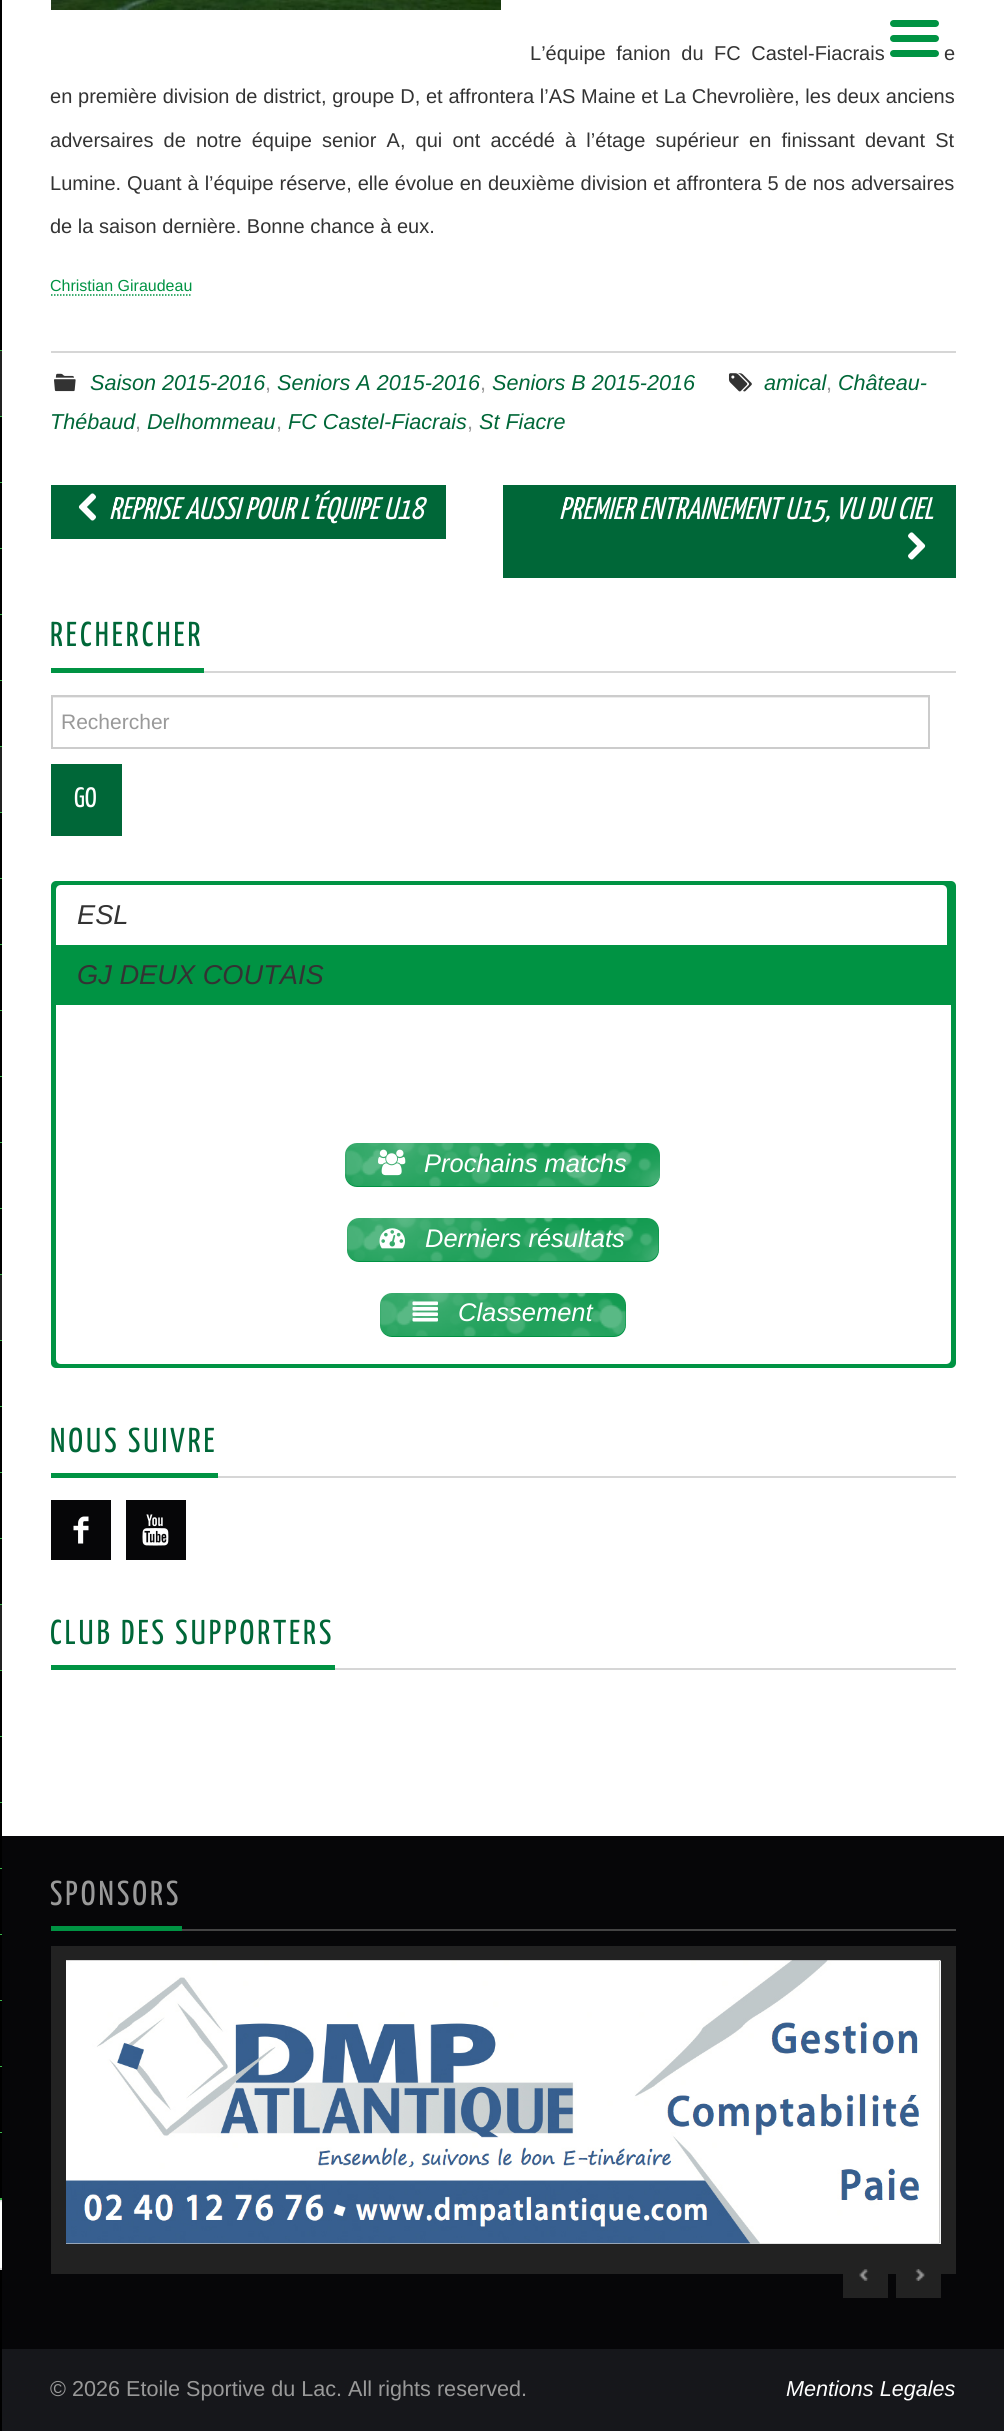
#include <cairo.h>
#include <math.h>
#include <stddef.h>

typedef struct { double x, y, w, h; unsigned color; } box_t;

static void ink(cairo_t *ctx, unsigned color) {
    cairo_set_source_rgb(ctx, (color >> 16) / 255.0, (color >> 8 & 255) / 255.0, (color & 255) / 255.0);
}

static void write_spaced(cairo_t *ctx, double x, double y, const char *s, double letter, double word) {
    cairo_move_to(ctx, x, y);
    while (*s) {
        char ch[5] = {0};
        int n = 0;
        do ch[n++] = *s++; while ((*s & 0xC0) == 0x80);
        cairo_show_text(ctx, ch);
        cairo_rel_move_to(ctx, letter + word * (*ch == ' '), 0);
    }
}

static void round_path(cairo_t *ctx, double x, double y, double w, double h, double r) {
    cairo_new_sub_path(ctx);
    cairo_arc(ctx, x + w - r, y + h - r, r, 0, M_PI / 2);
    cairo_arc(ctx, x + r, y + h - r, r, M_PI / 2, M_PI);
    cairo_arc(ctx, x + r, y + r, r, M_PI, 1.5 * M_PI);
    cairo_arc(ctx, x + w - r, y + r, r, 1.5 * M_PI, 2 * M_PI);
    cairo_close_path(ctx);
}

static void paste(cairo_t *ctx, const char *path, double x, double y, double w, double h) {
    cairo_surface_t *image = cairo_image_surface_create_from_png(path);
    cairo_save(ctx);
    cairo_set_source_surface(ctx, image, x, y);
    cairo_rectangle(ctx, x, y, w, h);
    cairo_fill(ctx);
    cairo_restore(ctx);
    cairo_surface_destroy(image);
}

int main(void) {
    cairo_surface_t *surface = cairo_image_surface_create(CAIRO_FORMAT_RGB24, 1004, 2431);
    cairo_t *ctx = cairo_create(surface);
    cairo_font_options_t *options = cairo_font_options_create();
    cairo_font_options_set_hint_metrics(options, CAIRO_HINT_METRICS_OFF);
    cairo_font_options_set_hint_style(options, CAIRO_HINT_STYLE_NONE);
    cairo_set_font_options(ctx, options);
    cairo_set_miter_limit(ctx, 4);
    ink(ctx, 0xFFFFFF);
    cairo_paint(ctx);
    {
        static const box_t items[] = {
            {0, 0, 2, 2431, 0x000000},
            {0, 350, 2, 1, 0x3AB54A},
            {0, 416, 2, 1, 0x3AB54A},
            {0, 351, 2, 65, 0x212121},
            {0, 482, 2, 1, 0x3AB54A},
            {0, 548, 2, 1, 0x3AB54A},
            {0, 614, 2, 1, 0x3AB54A},
            {0, 680, 2, 1, 0x3AB54A},
            {0, 746, 2, 1, 0x3AB54A},
            {0, 812, 2, 1, 0x3AB54A},
            {0, 747, 2, 65, 0x212121},
            {0, 878, 2, 1, 0x3AB54A},
            {0, 944, 2, 1, 0x3AB54A},
            {0, 1010, 2, 1, 0x3AB54A},
            {0, 1076, 2, 1, 0x3AB54A},
            {0, 1142, 2, 1, 0x3AB54A},
            {0, 1208, 2, 1, 0x3AB54A},
            {0, 1274, 2, 1, 0x3AB54A},
            {0, 1340, 2, 1, 0x3AB54A},
            {0, 1275, 2, 65, 0x212121},
            {0, 1406, 2, 1, 0x3AB54A},
            {0, 1472, 2, 1, 0x3AB54A},
            {0, 1538, 2, 1, 0x3AB54A},
            {0, 1604, 2, 1, 0x3AB54A},
            {0, 1670, 2, 1, 0x3AB54A},
            {0, 1605, 2, 65, 0x212121},
            {0, 1736, 2, 1, 0x3AB54A},
            {0, 1802, 2, 1, 0x3AB54A},
            {0, 1868, 2, 1, 0x3AB54A},
            {0, 1934, 2, 1, 0x3AB54A},
            {0, 2000, 2, 1, 0x3AB54A},
            {0, 2066, 2, 1, 0x3AB54A},
            {0, 2132, 2, 1, 0x3AB54A},
            {2, 1836, 1002, 513, 0x060608},
        };
        for (size_t i = 0; i < sizeof items / sizeof *items; i++) {
            ink(ctx, items[i].color);
            cairo_rectangle(ctx, items[i].x, items[i].y, items[i].w, items[i].h);
            cairo_fill(ctx);
        }
    }
    cairo_save(ctx);
    cairo_rectangle(ctx, 0, 0, 2, 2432);
    cairo_clip(ctx);
    ink(ctx, 0xFFFFFF);
    cairo_arc(ctx, -0.5, 2234.5, 35.5, 0, 2 * M_PI);
    cairo_fill(ctx);
    ink(ctx, 0xECECEC);
    cairo_new_path(ctx);
    cairo_move_to(ctx, -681, 2202);
    cairo_line_to(ctx, -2, 2202);
    cairo_curve_to(ctx, 17, 2202, 32, 2217, 32, 2236);
    cairo_curve_to(ctx, 32, 2243, 30, 2249, 26, 2255);
    cairo_curve_to(ctx, 43, 2233, 27, 2201, 0, 2201);
    cairo_line_to(ctx, -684, 2201);
    cairo_curve_to(ctx, -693, 2202, -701, 2206, -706, 2213);
    cairo_curve_to(ctx, -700, 2206, -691, 2202, -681, 2202);
    cairo_close_path(ctx);
    cairo_fill(ctx);
    round_path(ctx, -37, 2200, 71, 69, 34.5);
    ink(ctx, 0xDADADA);
    cairo_stroke(ctx);
    cairo_restore(ctx);
    ink(ctx, 0x3AB54A);
    cairo_rectangle(ctx, 0, 2198, 2, 2);
    cairo_fill(ctx);
    ink(ctx, 0x009343);
    round_path(ctx, 890, 35, 49, 7, 3.5);
    cairo_fill(ctx);
    round_path(ctx, 890, 20, 49, 7, 3.5);
    cairo_fill(ctx);
    round_path(ctx, 890, 50, 49, 7, 3.5);
    cairo_fill(ctx);
    paste(ctx, "media/1.png", 51, 0, 450, 10);
    cairo_select_font_face(ctx, "Liberation Sans", CAIRO_FONT_SLANT_NORMAL, CAIRO_FONT_WEIGHT_NORMAL);
    cairo_set_font_size(ctx, 20);
    ink(ctx, 0x333333);
    write_spaced(ctx, 530, 60, "L’équipe fanion du FC Castel-Fiacrais", 0, 5);
    write_spaced(ctx, 944, 60, "e", 0, 5);
    write_spaced(ctx, 50, 103, "en première division de district, groupe D, et affrontera l’AS Maine et La Chevrolière, les deux anciens", 0, 0.2);
    write_spaced(ctx, 50, 147, "adversaires de notre équipe senior A, qui ont accédé à l’étage supérieur en finissant devant St", 0, 4.6);
    write_spaced(ctx, 50, 190, "Lumine. Quant à l’équipe réserve, elle évolue en deuxième division et affrontera 5 de nos adversaires", 0, 0.4);
    cairo_move_to(ctx, 50, 233);
    cairo_show_text(ctx, "de la saison dernière. Bonne chance à eux.");
    cairo_set_font_size(ctx, 16);
    ink(ctx, 0x009343);
    cairo_move_to(ctx, 50, 291);
    cairo_show_text(ctx, "Christian Giraudeau");
    cairo_new_path(ctx);
    cairo_move_to(ctx, 51, 295);
    cairo_line_to(ctx, 192, 295);
    cairo_set_line_width(ctx, 1.5);
    cairo_set_dash(ctx, (double[]){1.5, 1.5}, 2, 0);
    cairo_stroke(ctx);
    ink(ctx, 0xD6D6D6);
    cairo_rectangle(ctx, 51, 351, 905, 2);
    cairo_fill(ctx);
    paste(ctx, "media/2.png", 728, 373, 24, 19);
    cairo_select_font_face(ctx, "Liberation Sans", CAIRO_FONT_SLANT_ITALIC, CAIRO_FONT_WEIGHT_NORMAL);
    cairo_set_font_size(ctx, 21.6);
    ink(ctx, 0x006738);
    cairo_move_to(ctx, 764, 390);
    cairo_show_text(ctx, "amical");
    cairo_select_font_face(ctx, "Liberation Sans", CAIRO_FONT_SLANT_NORMAL, CAIRO_FONT_WEIGHT_NORMAL);
    ink(ctx, 0x999999);
    cairo_move_to(ctx, 826, 390);
    cairo_show_text(ctx, ",");
    cairo_select_font_face(ctx, "Liberation Sans", CAIRO_FONT_SLANT_ITALIC, CAIRO_FONT_WEIGHT_NORMAL);
    ink(ctx, 0x006738);
    cairo_move_to(ctx, 838, 390);
    cairo_show_text(ctx, "Château-");
    cairo_move_to(ctx, 50, 429);
    cairo_show_text(ctx, "Thébaud");
    cairo_select_font_face(ctx, "Liberation Sans", CAIRO_FONT_SLANT_NORMAL, CAIRO_FONT_WEIGHT_NORMAL);
    ink(ctx, 0x999999);
    cairo_move_to(ctx, 135, 429);
    cairo_show_text(ctx, ",");
    cairo_select_font_face(ctx, "Liberation Sans", CAIRO_FONT_SLANT_ITALIC, CAIRO_FONT_WEIGHT_NORMAL);
    ink(ctx, 0x006738);
    cairo_move_to(ctx, 147, 429);
    cairo_show_text(ctx, "Delhommeau");
    cairo_select_font_face(ctx, "Liberation Sans", CAIRO_FONT_SLANT_NORMAL, CAIRO_FONT_WEIGHT_NORMAL);
    ink(ctx, 0x999999);
    cairo_move_to(ctx, 276, 429);
    cairo_show_text(ctx, ",");
    cairo_select_font_face(ctx, "Liberation Sans", CAIRO_FONT_SLANT_ITALIC, CAIRO_FONT_WEIGHT_NORMAL);
    ink(ctx, 0x006738);
    cairo_move_to(ctx, 288, 429);
    cairo_show_text(ctx, "FC Castel-Fiacrais");
    cairo_select_font_face(ctx, "Liberation Sans", CAIRO_FONT_SLANT_NORMAL, CAIRO_FONT_WEIGHT_NORMAL);
    ink(ctx, 0x999999);
    cairo_move_to(ctx, 467, 429);
    cairo_show_text(ctx, ",");
    cairo_select_font_face(ctx, "Liberation Sans", CAIRO_FONT_SLANT_ITALIC, CAIRO_FONT_WEIGHT_NORMAL);
    ink(ctx, 0x006738);
    cairo_move_to(ctx, 479, 429);
    cairo_show_text(ctx, "St Fiacre");
    paste(ctx, "media/3.png", 54, 373, 22, 19);
    cairo_move_to(ctx, 90, 390);
    cairo_show_text(ctx, "Saison 2015-2016");
    cairo_select_font_face(ctx, "Liberation Sans", CAIRO_FONT_SLANT_NORMAL, CAIRO_FONT_WEIGHT_NORMAL);
    ink(ctx, 0x999999);
    cairo_move_to(ctx, 265, 390);
    cairo_show_text(ctx, ",");
    cairo_select_font_face(ctx, "Liberation Sans", CAIRO_FONT_SLANT_ITALIC, CAIRO_FONT_WEIGHT_NORMAL);
    ink(ctx, 0x006738);
    cairo_move_to(ctx, 277, 390);
    cairo_show_text(ctx, "Seniors A 2015-2016");
    cairo_select_font_face(ctx, "Liberation Sans", CAIRO_FONT_SLANT_NORMAL, CAIRO_FONT_WEIGHT_NORMAL);
    ink(ctx, 0x999999);
    cairo_move_to(ctx, 480, 390);
    cairo_show_text(ctx, ",");
    cairo_select_font_face(ctx, "Liberation Sans", CAIRO_FONT_SLANT_ITALIC, CAIRO_FONT_WEIGHT_NORMAL);
    ink(ctx, 0x006738);
    cairo_move_to(ctx, 492, 390);
    cairo_show_text(ctx, "Seniors B 2015-2016");
    cairo_rectangle(ctx, 51, 485, 395, 54);
    cairo_fill(ctx);
    paste(ctx, "media/4.png", 78, 493, 18, 28);
    cairo_select_font_face(ctx, "Yanone Kaffeesatz", CAIRO_FONT_SLANT_ITALIC, CAIRO_FONT_WEIGHT_NORMAL);
    cairo_set_font_size(ctx, 31.25);
    ink(ctx, 0xFFFFFF);
    cairo_move_to(ctx, 109, 519);
    cairo_show_text(ctx, "REPRISE AUSSI POUR L’ÉQUIPE U18");
    ink(ctx, 0x006738);
    cairo_rectangle(ctx, 503, 485, 453, 93);
    cairo_fill(ctx);
    ink(ctx, 0xFFFFFF);
    cairo_move_to(ctx, 559, 519);
    cairo_show_text(ctx, "PREMIER ENTRAINEMENT U15, VU DU CIEL");
    paste(ctx, "media/5.png", 908, 532, 18, 28);
    ink(ctx, 0xD6D6D6);
    cairo_rectangle(ctx, 204, 671, 752, 2);
    cairo_fill(ctx);
    ink(ctx, 0x009343);
    cairo_rectangle(ctx, 51, 668, 153, 5);
    cairo_fill(ctx);
    cairo_select_font_face(ctx, "Yanone Kaffeesatz", CAIRO_FONT_SLANT_NORMAL, CAIRO_FONT_WEIGHT_NORMAL);
    cairo_set_font_size(ctx, 34.5);
    ink(ctx, 0x006738);
    write_spaced(ctx, 50, 646, "RECHERCHER", 3, 0);
    ink(ctx, 0xECECEC);
    cairo_rectangle(ctx, 53, 697, 876, 1);
    cairo_fill(ctx);
    cairo_rectangle(ctx, 52, 696, 877, 52);
    ink(ctx, 0xCCCCCC);
    cairo_set_line_width(ctx, 2);
    cairo_set_dash(ctx, NULL, 0, 0);
    cairo_stroke(ctx);
    cairo_select_font_face(ctx, "Liberation Sans", CAIRO_FONT_SLANT_NORMAL, CAIRO_FONT_WEIGHT_NORMAL);
    cairo_set_font_size(ctx, 21);
    ink(ctx, 0x999999);
    cairo_move_to(ctx, 61, 729);
    cairo_show_text(ctx, "Rechercher");
    ink(ctx, 0x006738);
    cairo_rectangle(ctx, 51, 764, 71, 72);
    cairo_fill(ctx);
    cairo_select_font_face(ctx, "Yanone Kaffeesatz", CAIRO_FONT_SLANT_NORMAL, CAIRO_FONT_WEIGHT_NORMAL);
    cairo_set_font_size(ctx, 28);
    ink(ctx, 0xFFFFFF);
    cairo_move_to(ctx, 74, 807);
    cairo_show_text(ctx, "GO");
    ink(ctx, 0x009343);
    round_path(ctx, 51, 881, 905, 487, 5);
    cairo_fill(ctx);
    ink(ctx, 0xFFFFFF);
    cairo_new_path(ctx);
    cairo_move_to(ctx, 61, 885);
    cairo_line_to(ctx, 942, 885);
    cairo_curve_to(ctx, 945, 885, 947, 887, 947, 890);
    cairo_line_to(ctx, 947, 945);
    cairo_line_to(ctx, 56, 945);
    cairo_line_to(ctx, 56, 890);
    cairo_curve_to(ctx, 56, 887, 58, 885, 61, 885);
    cairo_close_path(ctx);
    cairo_fill(ctx);
    cairo_select_font_face(ctx, "Liberation Sans", CAIRO_FONT_SLANT_ITALIC, CAIRO_FONT_WEIGHT_NORMAL);
    cairo_set_font_size(ctx, 27.25);
    ink(ctx, 0x333333);
    cairo_move_to(ctx, 77, 924);
    cairo_show_text(ctx, "ESL");
    cairo_move_to(ctx, 77, 984);
    cairo_show_text(ctx, "GJ DEUX COUTAIS");
    ink(ctx, 0xFFFFFF);
    cairo_new_path(ctx);
    cairo_move_to(ctx, 56, 1005);
    cairo_line_to(ctx, 951, 1005);
    cairo_line_to(ctx, 951, 1359);
    cairo_curve_to(ctx, 951, 1362, 949, 1364, 946, 1364);
    cairo_line_to(ctx, 61, 1364);
    cairo_curve_to(ctx, 58, 1364, 56, 1362, 56, 1359);
    cairo_close_path(ctx);
    cairo_fill(ctx);
    ink(ctx, 0x009343);
    round_path(ctx, 345, 1143, 315, 44, 12);
    cairo_fill(ctx);
    paste(ctx, "media/6.png", 345, 1143, 315, 43);
    paste(ctx, "media/7.png", 378, 1149, 28, 27);
    cairo_set_font_size(ctx, 25.5);
    ink(ctx, 0xFFFFFF);
    cairo_move_to(ctx, 424, 1172);
    cairo_show_text(ctx, "Prochains matchs");
    ink(ctx, 0x009343);
    round_path(ctx, 347, 1218, 312, 44, 12);
    cairo_fill(ctx);
    paste(ctx, "media/8.png", 347, 1218, 312, 43);
    paste(ctx, "media/9.png", 379, 1228, 26, 21);
    ink(ctx, 0xFFFFFF);
    cairo_move_to(ctx, 425, 1247);
    cairo_show_text(ctx, "Derniers résultats");
    ink(ctx, 0x009343);
    round_path(ctx, 380, 1293, 246, 44, 12);
    cairo_fill(ctx);
    paste(ctx, "media/10.png", 380, 1293, 246, 43);
    paste(ctx, "media/11.png", 412, 1301, 26, 21);
    ink(ctx, 0xFFFFFF);
    cairo_move_to(ctx, 458, 1321);
    cairo_show_text(ctx, "Classement");
    ink(ctx, 0xD6D6D6);
    cairo_rectangle(ctx, 218, 1476, 738, 2);
    cairo_fill(ctx);
    ink(ctx, 0x009343);
    cairo_rectangle(ctx, 51, 1473, 167, 5);
    cairo_fill(ctx);
    cairo_select_font_face(ctx, "Yanone Kaffeesatz", CAIRO_FONT_SLANT_NORMAL, CAIRO_FONT_WEIGHT_NORMAL);
    cairo_set_font_size(ctx, 34.5);
    ink(ctx, 0x006738);
    write_spaced(ctx, 50, 1452, "NOUS SUIVRE", 3, 0);
    ink(ctx, 0x060608);
    cairo_rectangle(ctx, 51, 1500, 60, 60);
    cairo_fill(ctx);
    paste(ctx, "media/12.png", 73, 1516, 16, 28);
    cairo_rectangle(ctx, 126, 1500, 60, 60);
    cairo_fill(ctx);
    paste(ctx, "media/13.png", 142, 1514, 27, 32);
    ink(ctx, 0xD6D6D6);
    cairo_rectangle(ctx, 335, 1668, 621, 2);
    cairo_fill(ctx);
    ink(ctx, 0x009343);
    cairo_rectangle(ctx, 51, 1665, 284, 5);
    cairo_fill(ctx);
    ink(ctx, 0x006738);
    write_spaced(ctx, 50, 1644, "CLUB DES SUPPORTERS", 3, 0);
    ink(ctx, 0x444444);
    cairo_rectangle(ctx, 182, 1929, 774, 2);
    cairo_fill(ctx);
    ink(ctx, 0x009343);
    cairo_rectangle(ctx, 51, 1926, 131, 5);
    cairo_fill(ctx);
    ink(ctx, 0x999999);
    write_spaced(ctx, 50, 1905, "SPONSORS", 3, 0);
    ink(ctx, 0x222222);
    cairo_rectangle(ctx, 51, 1946, 905, 328);
    cairo_fill(ctx);
    ink(ctx, 0xFFFFFF);
    cairo_rectangle(ctx, 66, 1961, 875, 283);
    cairo_fill(ctx);
    paste(ctx, "media/14.png", 66, 1960, 875, 284);
    ink(ctx, 0x222222);
    cairo_rectangle(ctx, 843, 2274, 45, 24);
    cairo_fill(ctx);
    paste(ctx, "media/15.png", 859, 2269, 10, 12);
    cairo_rectangle(ctx, 896, 2274, 45, 24);
    cairo_fill(ctx);
    paste(ctx, "media/16.png", 915, 2269, 10, 12);
    ink(ctx, 0x16171B);
    cairo_rectangle(ctx, 2, 2349, 1002, 82);
    cairo_fill(ctx);
    cairo_select_font_face(ctx, "Liberation Sans", CAIRO_FONT_SLANT_NORMAL, CAIRO_FONT_WEIGHT_NORMAL);
    cairo_set_font_size(ctx, 21.6);
    ink(ctx, 0x999999);
    cairo_move_to(ctx, 50, 2396);
    cairo_show_text(ctx, "© 2026 Etoile Sportive du Lac. All rights reserved.");
    cairo_select_font_face(ctx, "Liberation Sans", CAIRO_FONT_SLANT_ITALIC, CAIRO_FONT_WEIGHT_NORMAL);
    ink(ctx, 0xFFFFFF);
    cairo_move_to(ctx, 786, 2396);
    cairo_show_text(ctx, "Mentions Legales");
    cairo_surface_write_to_png(surface, "image.png");
    cairo_font_options_destroy(options);
    cairo_destroy(ctx);
    cairo_surface_destroy(surface);
    return 0;
}
